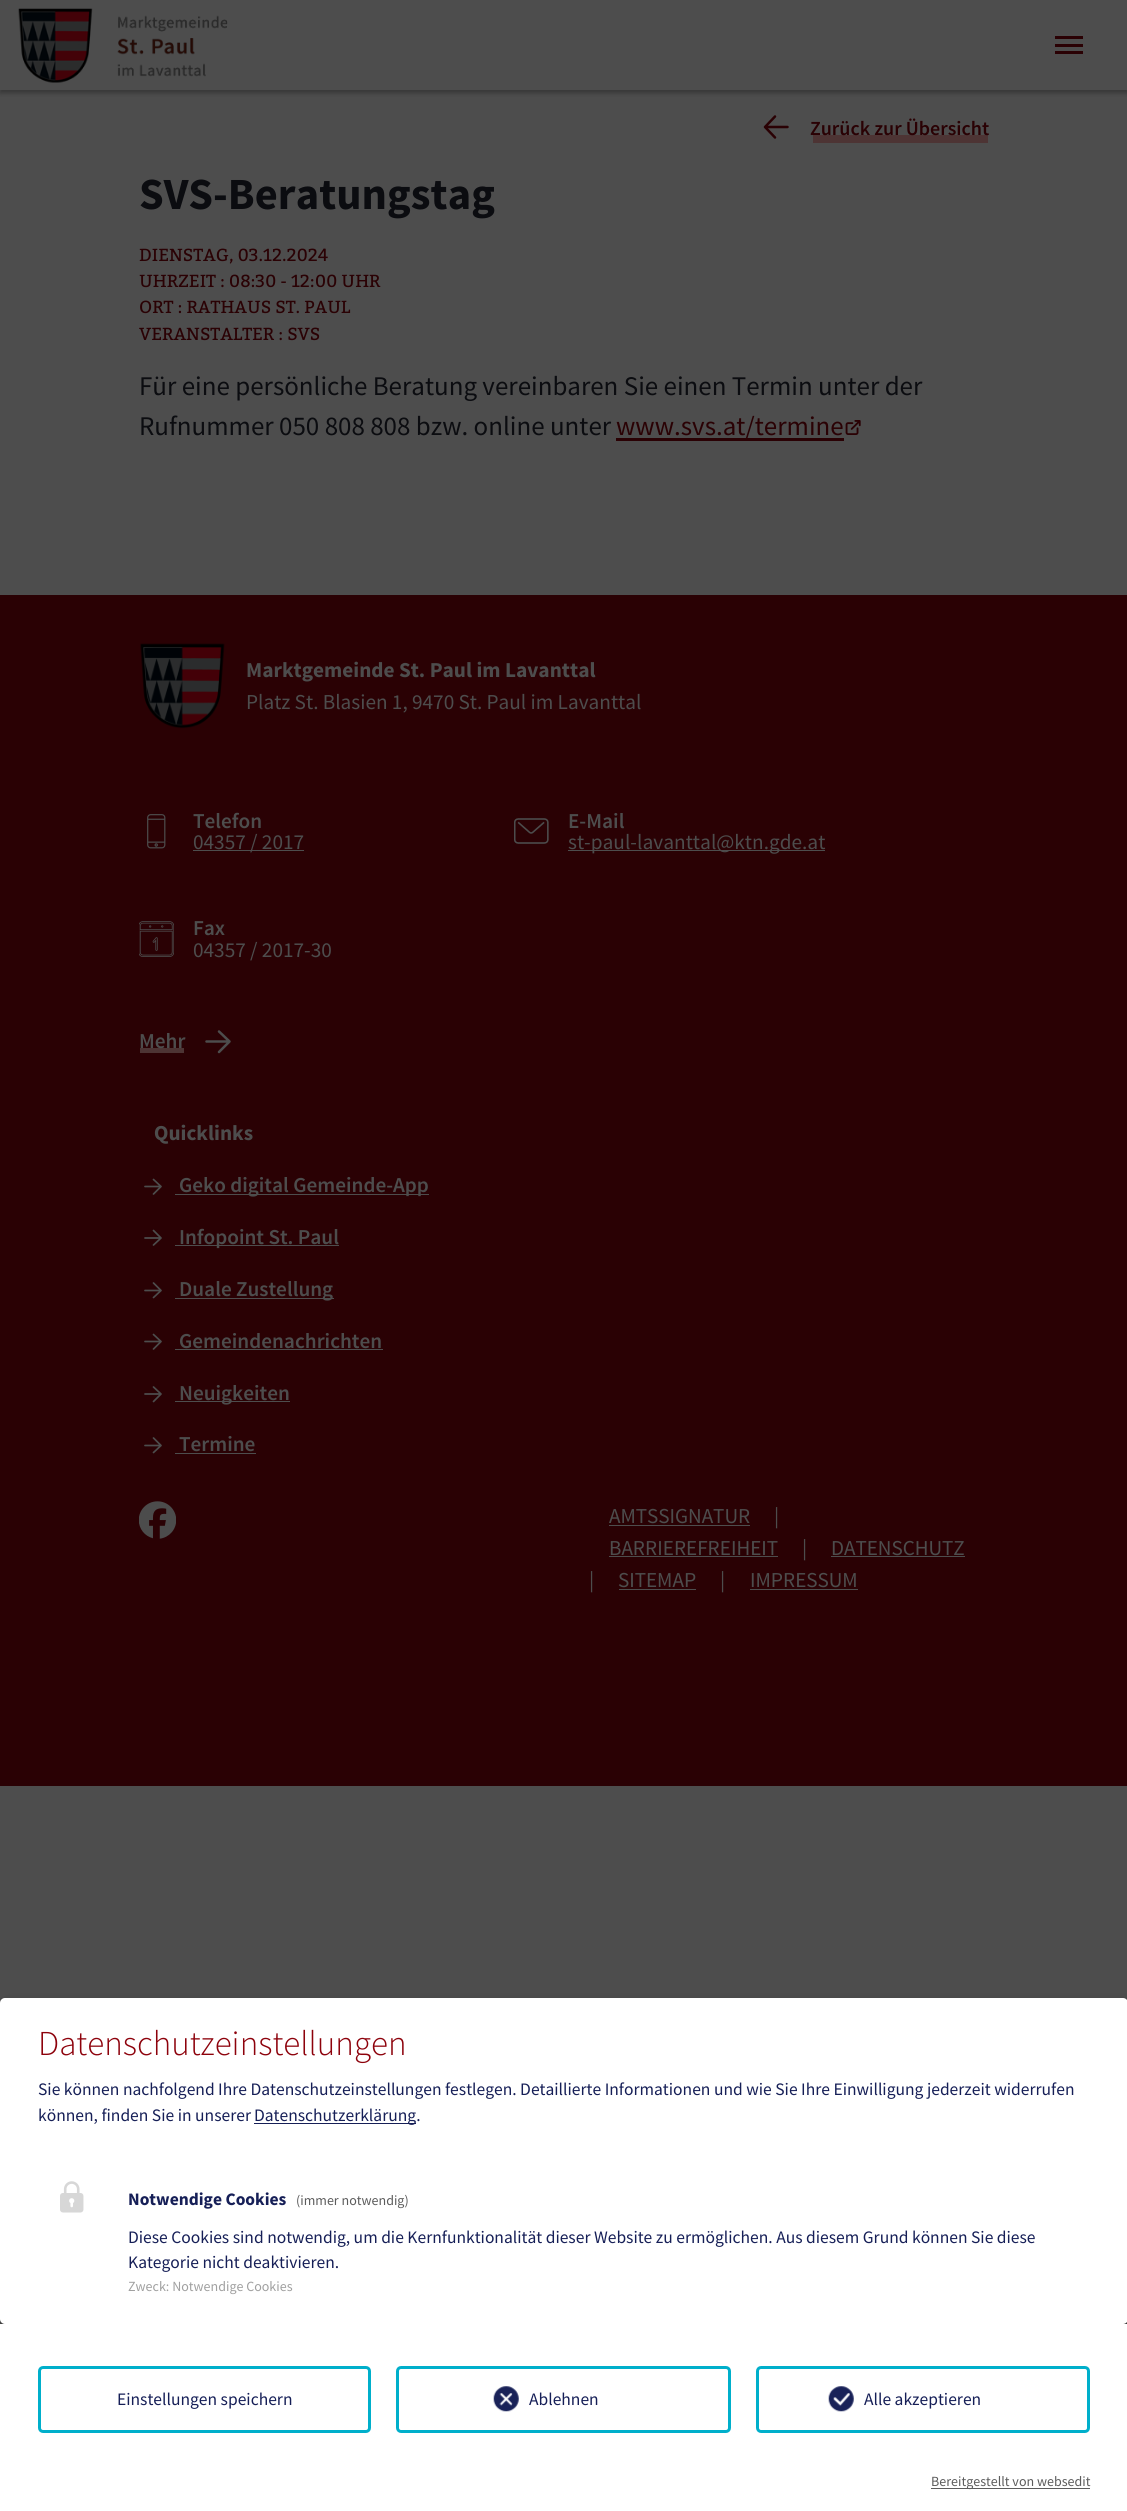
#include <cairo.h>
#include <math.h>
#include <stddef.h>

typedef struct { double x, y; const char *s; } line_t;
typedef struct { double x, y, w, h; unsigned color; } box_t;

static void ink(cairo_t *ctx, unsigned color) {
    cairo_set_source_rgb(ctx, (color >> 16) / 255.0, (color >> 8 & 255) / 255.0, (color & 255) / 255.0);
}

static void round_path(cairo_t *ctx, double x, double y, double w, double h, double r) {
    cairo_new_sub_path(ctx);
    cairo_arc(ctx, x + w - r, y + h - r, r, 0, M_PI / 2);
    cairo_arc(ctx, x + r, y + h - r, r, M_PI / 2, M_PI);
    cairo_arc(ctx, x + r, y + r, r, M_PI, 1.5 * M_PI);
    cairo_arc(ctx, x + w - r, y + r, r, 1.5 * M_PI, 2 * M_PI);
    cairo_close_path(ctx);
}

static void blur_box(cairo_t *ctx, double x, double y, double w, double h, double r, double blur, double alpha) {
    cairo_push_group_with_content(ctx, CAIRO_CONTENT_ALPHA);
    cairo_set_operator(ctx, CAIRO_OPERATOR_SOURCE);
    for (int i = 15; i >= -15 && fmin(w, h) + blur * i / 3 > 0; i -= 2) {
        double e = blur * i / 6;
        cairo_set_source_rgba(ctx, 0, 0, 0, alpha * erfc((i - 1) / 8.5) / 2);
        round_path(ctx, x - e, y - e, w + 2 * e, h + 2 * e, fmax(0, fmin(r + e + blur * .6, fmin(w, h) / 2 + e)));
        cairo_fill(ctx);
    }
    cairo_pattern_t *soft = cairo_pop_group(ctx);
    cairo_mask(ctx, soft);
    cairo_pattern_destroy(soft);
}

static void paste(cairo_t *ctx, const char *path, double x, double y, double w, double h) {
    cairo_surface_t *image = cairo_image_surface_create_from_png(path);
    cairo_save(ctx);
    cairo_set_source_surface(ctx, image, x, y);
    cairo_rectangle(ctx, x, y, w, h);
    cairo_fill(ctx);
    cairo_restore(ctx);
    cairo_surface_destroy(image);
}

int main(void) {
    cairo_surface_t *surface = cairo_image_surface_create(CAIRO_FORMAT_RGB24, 1127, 2511);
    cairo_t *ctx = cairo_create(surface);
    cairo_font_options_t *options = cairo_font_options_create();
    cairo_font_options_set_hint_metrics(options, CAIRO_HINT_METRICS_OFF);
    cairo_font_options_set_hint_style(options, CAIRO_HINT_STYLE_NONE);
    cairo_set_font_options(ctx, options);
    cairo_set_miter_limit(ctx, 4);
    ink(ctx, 0x4D4D4D);
    cairo_paint(ctx);
    cairo_save(ctx);
    cairo_rectangle(ctx, 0, 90, 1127, 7);
    cairo_clip(ctx);
    ink(ctx, 0x000000);
    blur_box(ctx, 0, 3, 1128, 90, 0, 2.5, 0.3);
    cairo_restore(ctx);
    paste(ctx, "media/1.png", 18, 8, 210, 75);
    {
        static const box_t items[] = {
            {1055, 44, 28, 3, 0x2A0104},
            {1055, 36, 28, 3, 0x2A0104},
            {1055, 51, 28, 3, 0x2A0104},
        };
        for (size_t i = 0; i < sizeof items / sizeof *items; i++) {
            ink(ctx, items[i].color);
            cairo_rectangle(ctx, items[i].x, items[i].y, items[i].w, items[i].h);
            cairo_fill(ctx);
        }
    }
    cairo_new_path(ctx);
    cairo_move_to(ctx, 775, 137.5);
    cairo_line_to(ctx, 765, 127);
    cairo_line_to(ctx, 775, 116.5);
    cairo_move_to(ctx, 766.5, 127);
    cairo_line_to(ctx, 787.5, 127);
    cairo_set_line_width(ctx, 2.5);
    cairo_set_line_cap(ctx, CAIRO_LINE_CAP_ROUND);
    cairo_set_line_join(ctx, CAIRO_LINE_JOIN_ROUND);
    cairo_stroke(ctx);
    ink(ctx, 0x4D3434);
    cairo_rectangle(ctx, 813, 135, 175, 8);
    cairo_fill(ctx);
    cairo_select_font_face(ctx, "Source Sans Pro SemiBold", CAIRO_FONT_SLANT_NORMAL, CAIRO_FONT_WEIGHT_NORMAL);
    cairo_set_font_size(ctx, 20);
    ink(ctx, 0x2A0104);
    cairo_move_to(ctx, 810, 135);
    cairo_show_text(ctx, "Zurück zur Übersicht");
    cairo_select_font_face(ctx, "Source Sans Pro", CAIRO_FONT_SLANT_NORMAL, CAIRO_FONT_WEIGHT_BOLD);
    cairo_set_font_size(ctx, 44.5);
    ink(ctx, 0x0B0C10);
    cairo_move_to(ctx, 139, 209);
    cairo_show_text(ctx, "SVS-Beratungstag");
    cairo_select_font_face(ctx, "Bitter", CAIRO_FONT_SLANT_NORMAL, CAIRO_FONT_WEIGHT_NORMAL);
    cairo_set_font_size(ctx, 17.5);
    ink(ctx, 0x2A0104);
    {
        static const line_t items[] = {
            {139, 261, "DIENSTAG, 03.12.2024"},
            {139, 287, "UHRZEIT : 08:30 - 12:00 UHR"},
            {139, 313, "ORT : RATHAUS ST. PAUL"},
            {139, 340, "VERANSTALTER : SVS"},
        };
        for (size_t i = 0; i < sizeof items / sizeof *items; i++) {
            cairo_move_to(ctx, items[i].x, items[i].y);
            cairo_show_text(ctx, items[i].s);
        }
    }
    cairo_select_font_face(ctx, "Source Sans Pro", CAIRO_FONT_SLANT_NORMAL, CAIRO_FONT_WEIGHT_NORMAL);
    cairo_set_font_size(ctx, 26.95);
    ink(ctx, 0x0B0C10);
    cairo_move_to(ctx, 139, 395);
    cairo_show_text(ctx, "Für eine persönliche Beratung vereinbaren Sie einen Termin unter der");
    cairo_move_to(ctx, 139, 435);
    cairo_show_text(ctx, "Rufnummer 050 808 808 bzw. online unter");
    ink(ctx, 0x2A0104);
    cairo_rectangle(ctx, 616, 438, 228, 3);
    cairo_fill(ctx);
    cairo_move_to(ctx, 616, 435);
    cairo_show_text(ctx, "www.svs.at/termine");
    paste(ctx, "media/2.png", 845, 420, 16, 15);
    cairo_rectangle(ctx, 0, 595, 1127, 1191);
    cairo_fill(ctx);
    paste(ctx, "media/3.png", 140, 643, 85, 86);
    cairo_select_font_face(ctx, "Source Sans Pro", CAIRO_FONT_SLANT_NORMAL, CAIRO_FONT_WEIGHT_BOLD);
    cairo_set_font_size(ctx, 21.25);
    ink(ctx, 0x4D4D4D);
    cairo_move_to(ctx, 246, 677);
    cairo_show_text(ctx, "Marktgemeinde St. Paul im Lavanttal");
    cairo_select_font_face(ctx, "Source Sans Pro", CAIRO_FONT_SLANT_NORMAL, CAIRO_FONT_WEIGHT_NORMAL);
    cairo_move_to(ctx, 246, 709);
    cairo_show_text(ctx, "Platz St. Blasien 1, 9470 St. Paul im Lavanttal");
    paste(ctx, "media/4.png", 147, 814, 19, 35);
    cairo_select_font_face(ctx, "Source Sans Pro SemiBold", CAIRO_FONT_SLANT_NORMAL, CAIRO_FONT_WEIGHT_NORMAL);
    cairo_move_to(ctx, 193, 828);
    cairo_show_text(ctx, "Telefon");
    cairo_rectangle(ctx, 193, 850, 111, 1);
    cairo_fill(ctx);
    cairo_select_font_face(ctx, "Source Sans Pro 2", CAIRO_FONT_SLANT_NORMAL, CAIRO_FONT_WEIGHT_NORMAL);
    cairo_move_to(ctx, 193, 849);
    cairo_show_text(ctx, "04357 / 2017");
    paste(ctx, "media/5.png", 514, 818, 35, 26);
    cairo_select_font_face(ctx, "Source Sans Pro SemiBold", CAIRO_FONT_SLANT_NORMAL, CAIRO_FONT_WEIGHT_NORMAL);
    cairo_move_to(ctx, 568, 828);
    cairo_show_text(ctx, "E-Mail");
    cairo_rectangle(ctx, 568, 850, 257, 1);
    cairo_fill(ctx);
    cairo_select_font_face(ctx, "Source Sans Pro 2", CAIRO_FONT_SLANT_NORMAL, CAIRO_FONT_WEIGHT_NORMAL);
    cairo_move_to(ctx, 568, 849);
    cairo_show_text(ctx, "st-paul-lavanttal@ktn.gde.at");
    paste(ctx, "media/6.png", 139, 921, 35, 36);
    cairo_select_font_face(ctx, "Source Sans Pro SemiBold", CAIRO_FONT_SLANT_NORMAL, CAIRO_FONT_WEIGHT_NORMAL);
    cairo_move_to(ctx, 193, 935);
    cairo_show_text(ctx, "Fax");
    cairo_select_font_face(ctx, "Source Sans Pro 2", CAIRO_FONT_SLANT_NORMAL, CAIRO_FONT_WEIGHT_NORMAL);
    cairo_move_to(ctx, 193, 957);
    cairo_show_text(ctx, "04357 / 2017-30");
    ink(ctx, 0x4D3434);
    cairo_rectangle(ctx, 140, 1048, 44, 5);
    cairo_fill(ctx);
    cairo_select_font_face(ctx, "Source Sans Pro SemiBold", CAIRO_FONT_SLANT_NORMAL, CAIRO_FONT_WEIGHT_NORMAL);
    ink(ctx, 0x4D4D4D);
    cairo_move_to(ctx, 139, 1048);
    cairo_show_text(ctx, "Mehr");
    cairo_new_path(ctx);
    cairo_move_to(ctx, 219, 1031.5);
    cairo_line_to(ctx, 229.5, 1041.5);
    cairo_line_to(ctx, 219, 1052);
    cairo_move_to(ctx, 227.5, 1041.5);
    cairo_line_to(ctx, 206.5, 1041.5);
    cairo_stroke(ctx);
    cairo_select_font_face(ctx, "Source Sans Pro", CAIRO_FONT_SLANT_NORMAL, CAIRO_FONT_WEIGHT_BOLD);
    cairo_move_to(ctx, 154, 1140);
    cairo_show_text(ctx, "Quicklinks");
    cairo_new_path(ctx);
    cairo_move_to(ctx, 153.5, 1179.5);
    cairo_line_to(ctx, 161, 1186.5);
    cairo_line_to(ctx, 153.5, 1194);
    cairo_move_to(ctx, 159.5, 1186.5);
    cairo_line_to(ctx, 145, 1186.5);
    cairo_set_line_width(ctx, 1.7);
    cairo_stroke(ctx);
    cairo_rectangle(ctx, 175, 1194, 254, 1);
    cairo_fill(ctx);
    cairo_select_font_face(ctx, "Source Sans Pro SemiBold", CAIRO_FONT_SLANT_NORMAL, CAIRO_FONT_WEIGHT_NORMAL);
    cairo_move_to(ctx, 179, 1192);
    cairo_show_text(ctx, "Geko digital Gemeinde-App");
    cairo_new_path(ctx);
    cairo_move_to(ctx, 153.5, 1230.5);
    cairo_line_to(ctx, 161, 1238);
    cairo_line_to(ctx, 153.5, 1245);
    cairo_move_to(ctx, 159.5, 1238);
    cairo_line_to(ctx, 145, 1238);
    cairo_stroke(ctx);
    cairo_rectangle(ctx, 175, 1245, 164, 1);
    cairo_fill(ctx);
    cairo_move_to(ctx, 179, 1244);
    cairo_show_text(ctx, "Infopoint St. Paul");
    cairo_new_path(ctx);
    cairo_move_to(ctx, 153.5, 1283);
    cairo_line_to(ctx, 161, 1290.5);
    cairo_line_to(ctx, 153.5, 1297.5);
    cairo_move_to(ctx, 159.5, 1290.5);
    cairo_line_to(ctx, 145, 1290.5);
    cairo_stroke(ctx);
    cairo_rectangle(ctx, 175, 1298, 159, 1);
    cairo_fill(ctx);
    cairo_move_to(ctx, 179, 1296);
    cairo_show_text(ctx, "Duale Zustellung");
    cairo_new_path(ctx);
    cairo_move_to(ctx, 153.5, 1334.5);
    cairo_line_to(ctx, 161, 1341.5);
    cairo_line_to(ctx, 153.5, 1349);
    cairo_move_to(ctx, 159.5, 1341.5);
    cairo_line_to(ctx, 145, 1341.5);
    cairo_stroke(ctx);
    cairo_move_to(ctx, 179, 1348);
    cairo_show_text(ctx, "Gemeindenachrichten");
    cairo_rectangle(ctx, 175, 1349, 208, 1);
    cairo_fill(ctx);
    cairo_new_path(ctx);
    cairo_move_to(ctx, 153.5, 1387);
    cairo_line_to(ctx, 161, 1394);
    cairo_line_to(ctx, 153.5, 1401.5);
    cairo_move_to(ctx, 159.5, 1394);
    cairo_line_to(ctx, 145, 1394);
    cairo_stroke(ctx);
    cairo_rectangle(ctx, 175, 1401, 115, 1);
    cairo_fill(ctx);
    cairo_move_to(ctx, 179, 1400);
    cairo_show_text(ctx, "Neuigkeiten");
    cairo_new_path(ctx);
    cairo_move_to(ctx, 153.5, 1438);
    cairo_line_to(ctx, 161, 1445.5);
    cairo_line_to(ctx, 153.5, 1452.5);
    cairo_move_to(ctx, 159.5, 1445.5);
    cairo_line_to(ctx, 145, 1445.5);
    cairo_stroke(ctx);
    cairo_move_to(ctx, 179, 1451);
    cairo_show_text(ctx, "Termine");
    cairo_rectangle(ctx, 175, 1453, 81, 1);
    cairo_fill(ctx);
    paste(ctx, "media/7.png", 139, 1501, 37, 38);
    cairo_select_font_face(ctx, "Source Sans Pro 2", CAIRO_FONT_SLANT_NORMAL, CAIRO_FONT_WEIGHT_NORMAL);
    cairo_move_to(ctx, 609, 1523);
    cairo_show_text(ctx, "AMTSSIGNATUR");
    cairo_rectangle(ctx, 609, 1525, 141, 1);
    cairo_fill(ctx);
    cairo_select_font_face(ctx, "Source Sans Pro", CAIRO_FONT_SLANT_NORMAL, CAIRO_FONT_WEIGHT_NORMAL);
    cairo_move_to(ctx, 774, 1523);
    cairo_show_text(ctx, "|");
    cairo_select_font_face(ctx, "Source Sans Pro 2", CAIRO_FONT_SLANT_NORMAL, CAIRO_FONT_WEIGHT_NORMAL);
    cairo_move_to(ctx, 609, 1555);
    cairo_show_text(ctx, "BARRIEREFREIHEIT");
    cairo_rectangle(ctx, 609, 1556, 169, 1);
    cairo_fill(ctx);
    cairo_select_font_face(ctx, "Source Sans Pro", CAIRO_FONT_SLANT_NORMAL, CAIRO_FONT_WEIGHT_NORMAL);
    cairo_move_to(ctx, 802, 1555);
    cairo_show_text(ctx, "|");
    cairo_select_font_face(ctx, "Source Sans Pro 2", CAIRO_FONT_SLANT_NORMAL, CAIRO_FONT_WEIGHT_NORMAL);
    cairo_move_to(ctx, 831, 1555);
    cairo_show_text(ctx, "DATENSCHUTZ");
    cairo_rectangle(ctx, 831, 1556, 134, 1);
    cairo_fill(ctx);
    cairo_select_font_face(ctx, "Source Sans Pro", CAIRO_FONT_SLANT_NORMAL, CAIRO_FONT_WEIGHT_NORMAL);
    cairo_move_to(ctx, 589, 1587);
    cairo_show_text(ctx, "|");
    cairo_select_font_face(ctx, "Source Sans Pro 2", CAIRO_FONT_SLANT_NORMAL, CAIRO_FONT_WEIGHT_NORMAL);
    cairo_move_to(ctx, 618, 1587);
    cairo_show_text(ctx, "SITEMAP");
    cairo_rectangle(ctx, 619, 1589, 77, 1);
    cairo_fill(ctx);
    cairo_select_font_face(ctx, "Source Sans Pro", CAIRO_FONT_SLANT_NORMAL, CAIRO_FONT_WEIGHT_NORMAL);
    cairo_move_to(ctx, 720, 1587);
    cairo_show_text(ctx, "|");
    cairo_select_font_face(ctx, "Source Sans Pro 2", CAIRO_FONT_SLANT_NORMAL, CAIRO_FONT_WEIGHT_NORMAL);
    cairo_move_to(ctx, 750, 1587);
    cairo_show_text(ctx, "IMPRESSUM");
    cairo_rectangle(ctx, 750, 1589, 108, 1);
    cairo_fill(ctx);
    ink(ctx, 0x000000);
    blur_box(ctx, 6, 2004, 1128, 326, 5, 6, 0.19);
    blur_box(ctx, 0, 2003, 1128, 326, 5, 4, 0.2);
    ink(ctx, 0xFFFFFF);
    round_path(ctx, 0, 1998, 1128, 326, 5);
    cairo_fill(ctx);
    cairo_select_font_face(ctx, "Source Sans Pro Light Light", CAIRO_FONT_SLANT_NORMAL, CAIRO_FONT_WEIGHT_NORMAL);
    cairo_set_font_size(ctx, 35);
    ink(ctx, 0x8D020C);
    cairo_move_to(ctx, 38, 2055);
    cairo_show_text(ctx, "Datenschutzeinstellungen");
    cairo_select_font_face(ctx, "Source Sans Pro", CAIRO_FONT_SLANT_NORMAL, CAIRO_FONT_WEIGHT_NORMAL);
    cairo_set_font_size(ctx, 17.5);
    ink(ctx, 0x161F57);
    cairo_move_to(ctx, 38, 2095);
    cairo_show_text(ctx, "Sie können nachfolgend Ihre Datenschutzeinstellungen festlegen. Detaillierte Informationen und wie Sie Ihre Einwilligung jederzeit widerrufen");
    cairo_move_to(ctx, 38, 2121);
    cairo_show_text(ctx, "können, finden Sie in unserer");
    cairo_rectangle(ctx, 254, 2123, 162, 1);
    cairo_fill(ctx);
    cairo_move_to(ctx, 254, 2121);
    cairo_show_text(ctx, "Datenschutzerklärung.");
    paste(ctx, "media/8.png", 60, 2181, 24, 32);
    cairo_select_font_face(ctx, "Source Sans Pro 2", CAIRO_FONT_SLANT_NORMAL, CAIRO_FONT_WEIGHT_BOLD);
    cairo_move_to(ctx, 128, 2205);
    cairo_show_text(ctx, "Notwendige Cookies");
    cairo_select_font_face(ctx, "Source Sans Pro", CAIRO_FONT_SLANT_NORMAL, CAIRO_FONT_WEIGHT_NORMAL);
    cairo_set_font_size(ctx, 14);
    ink(ctx, 0x5C5C5C);
    cairo_move_to(ctx, 296, 2205);
    cairo_show_text(ctx, "(immer notwendig)");
    cairo_set_font_size(ctx, 17.5);
    ink(ctx, 0x161F57);
    cairo_move_to(ctx, 128, 2243);
    cairo_show_text(ctx, "Diese Cookies sind notwendig, um die Kernfunktionalität dieser Website zu ermöglichen. Aus diesem Grund können Sie diese");
    cairo_move_to(ctx, 128, 2268);
    cairo_show_text(ctx, "Kategorie nicht deaktivieren.");
    cairo_set_font_size(ctx, 14);
    ink(ctx, 0xA0A0A0);
    cairo_move_to(ctx, 128, 2291);
    cairo_show_text(ctx, "Zweck: Notwendige Cookies");
    ink(ctx, 0xFFFFFF);
    cairo_rectangle(ctx, 0, 2324, 1127, 187);
    cairo_fill(ctx);
    round_path(ctx, 39.5, 2367.5, 330, 64, 3.5);
    ink(ctx, 0x00AFCB);
    cairo_set_line_width(ctx, 3);
    cairo_set_line_cap(ctx, CAIRO_LINE_CAP_BUTT);
    cairo_set_line_join(ctx, CAIRO_LINE_JOIN_MITER);
    cairo_stroke(ctx);
    cairo_set_font_size(ctx, 17.5);
    ink(ctx, 0x161F57);
    cairo_move_to(ctx, 117, 2405);
    cairo_show_text(ctx, "Einstellungen speichern");
    round_path(ctx, 397.5, 2367.5, 332, 64, 3.5);
    ink(ctx, 0x00AFCB);
    cairo_stroke(ctx);
    paste(ctx, "media/9.png", 493, 2386, 26, 26);
    ink(ctx, 0x161F57);
    cairo_move_to(ctx, 529, 2405);
    cairo_show_text(ctx, "Ablehnen");
    round_path(ctx, 757.5, 2367.5, 331, 64, 3.5);
    ink(ctx, 0x00AFCB);
    cairo_stroke(ctx);
    paste(ctx, "media/10.png", 828, 2386, 26, 26);
    ink(ctx, 0x161F57);
    cairo_move_to(ctx, 864, 2405);
    cairo_show_text(ctx, "Alle akzeptieren");
    ink(ctx, 0x5C5C5C);
    cairo_rectangle(ctx, 931, 2488, 159, 1);
    cairo_fill(ctx);
    cairo_set_font_size(ctx, 14);
    cairo_move_to(ctx, 931, 2486);
    cairo_show_text(ctx, "Bereitgestellt von websedit");
    cairo_surface_write_to_png(surface, "image.png");
    cairo_font_options_destroy(options);
    cairo_destroy(ctx);
    cairo_surface_destroy(surface);
    return 0;
}
